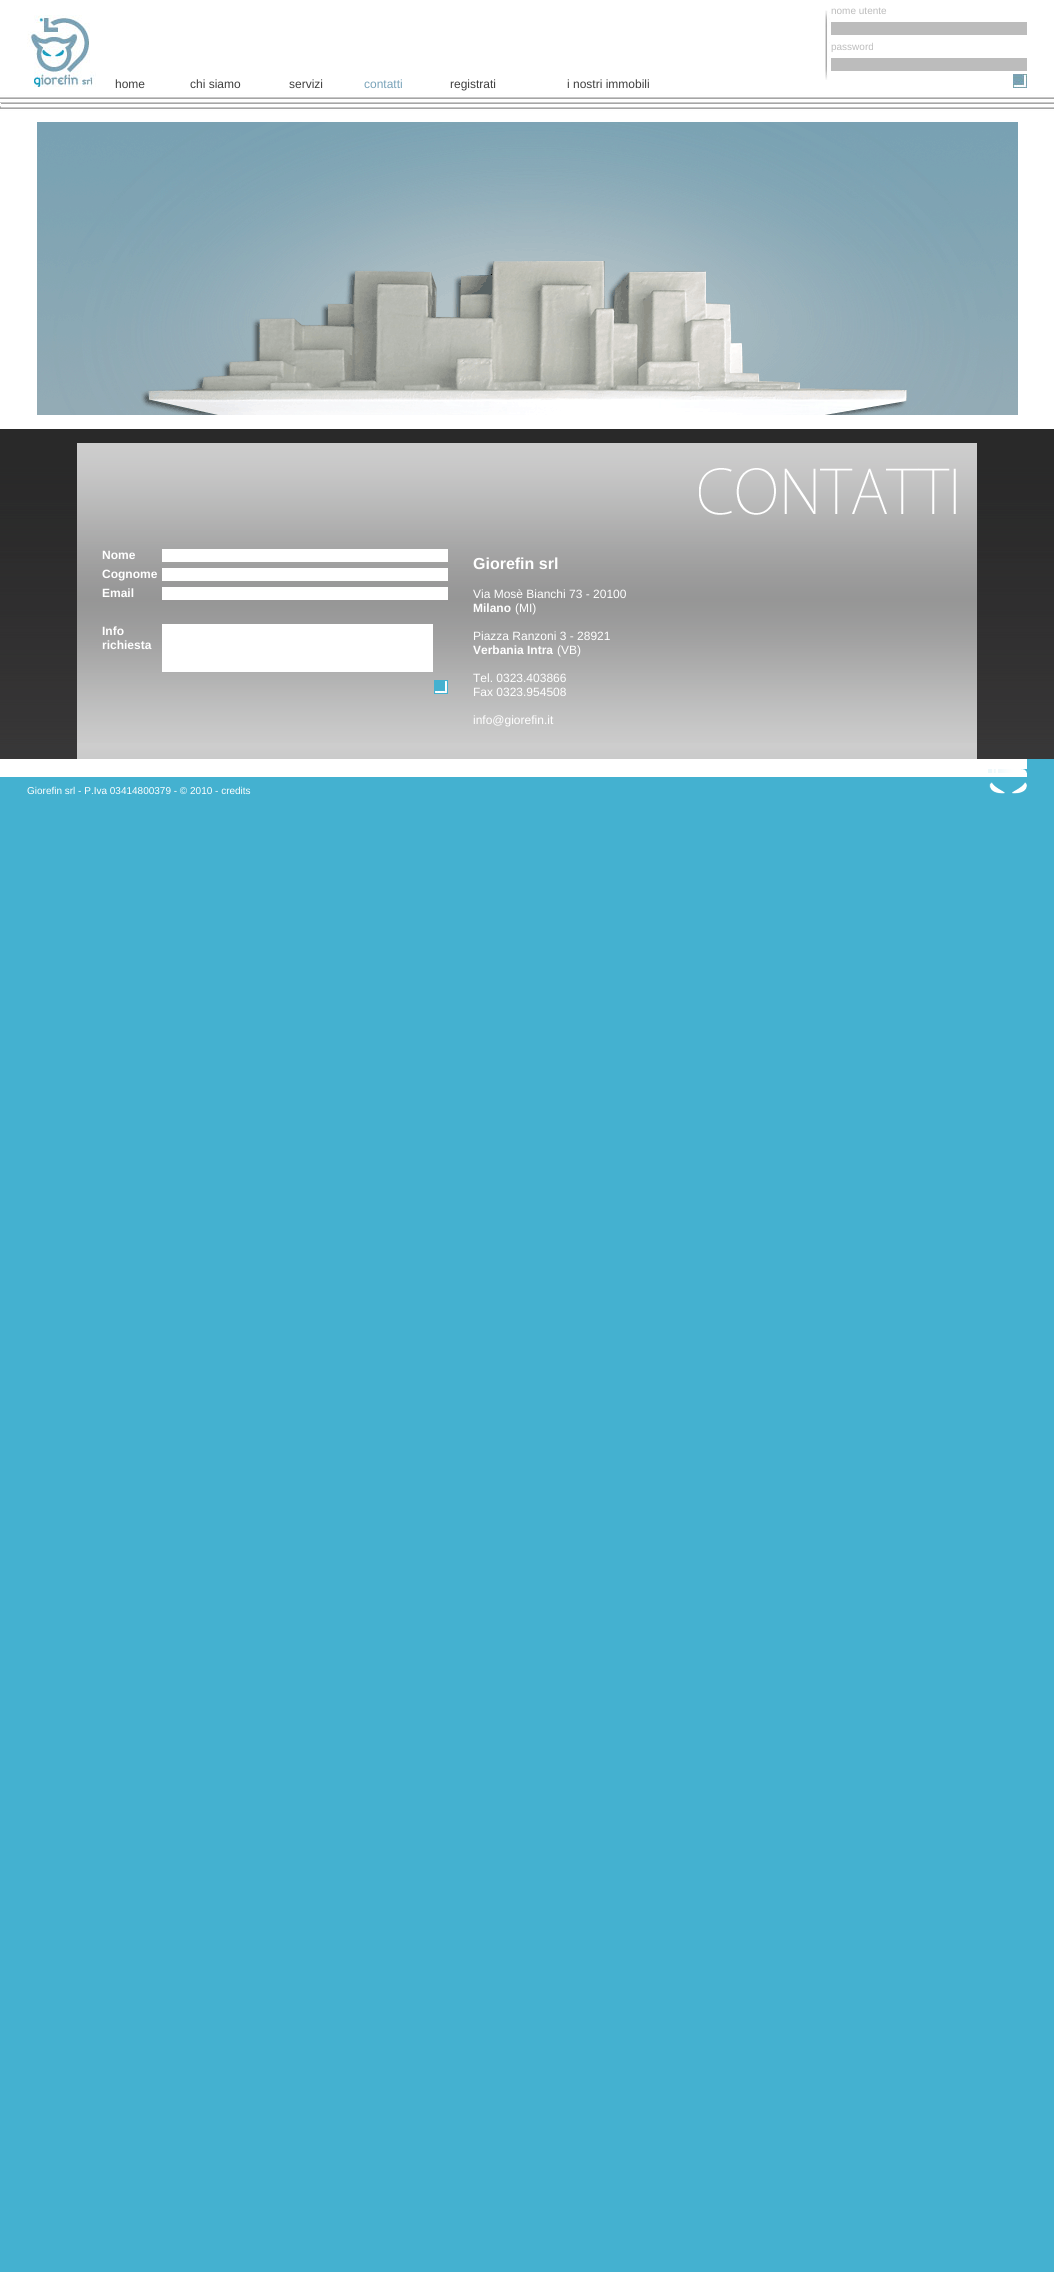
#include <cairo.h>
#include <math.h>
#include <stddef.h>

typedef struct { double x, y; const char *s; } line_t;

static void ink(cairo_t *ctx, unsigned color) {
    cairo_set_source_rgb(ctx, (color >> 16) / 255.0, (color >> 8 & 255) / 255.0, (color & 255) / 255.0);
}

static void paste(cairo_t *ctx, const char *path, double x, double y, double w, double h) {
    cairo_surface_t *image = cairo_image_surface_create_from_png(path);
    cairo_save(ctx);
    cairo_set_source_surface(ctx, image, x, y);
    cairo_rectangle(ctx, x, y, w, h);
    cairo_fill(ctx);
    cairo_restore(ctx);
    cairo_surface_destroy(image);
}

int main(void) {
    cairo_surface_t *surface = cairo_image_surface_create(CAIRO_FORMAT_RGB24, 1054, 2272);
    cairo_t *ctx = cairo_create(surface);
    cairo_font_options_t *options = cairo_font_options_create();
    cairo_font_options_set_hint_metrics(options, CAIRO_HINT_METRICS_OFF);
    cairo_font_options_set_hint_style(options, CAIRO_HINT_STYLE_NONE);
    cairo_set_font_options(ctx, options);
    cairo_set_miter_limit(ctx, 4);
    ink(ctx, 0x44B1D0);
    cairo_paint(ctx);
    ink(ctx, 0xFFFFFF);
    cairo_rectangle(ctx, 0, 0, 1054, 94);
    cairo_fill(ctx);
    paste(ctx, "media/1.png", 27, 15, 69, 72);
    cairo_select_font_face(ctx, "Liberation Sans", CAIRO_FONT_SLANT_NORMAL, CAIRO_FONT_WEIGHT_NORMAL);
    cairo_set_font_size(ctx, 12);
    ink(ctx, 0x3F3F3F);
    {
        static const line_t items[] = {
            {115, 88, "home"},
            {190, 88, "chi siamo"},
            {289, 88, "servizi"},
        };
        for (size_t i = 0; i < sizeof items / sizeof *items; i++) {
            cairo_move_to(ctx, items[i].x, items[i].y);
            cairo_show_text(ctx, items[i].s);
        }
    }
    ink(ctx, 0x79A3B9);
    cairo_move_to(ctx, 364, 88);
    cairo_show_text(ctx, "contatti");
    ink(ctx, 0x3F3F3F);
    cairo_move_to(ctx, 450, 88);
    cairo_show_text(ctx, "registrati");
    cairo_move_to(ctx, 567, 88);
    cairo_show_text(ctx, "i nostri immobili");
    paste(ctx, "media/2.png", 825, 10, 5, 70);
    cairo_set_font_size(ctx, 10);
    ink(ctx, 0xBCBCBC);
    cairo_move_to(ctx, 831, 14);
    cairo_show_text(ctx, "nome utente");
    cairo_rectangle(ctx, 831, 22, 196, 13);
    cairo_fill(ctx);
    cairo_move_to(ctx, 831, 50);
    cairo_show_text(ctx, "password");
    cairo_rectangle(ctx, 831, 58, 196, 13);
    cairo_fill(ctx);
    paste(ctx, "media/3.png", 1013, 74, 14, 14);
    paste(ctx, "media/4.png", 0, 94, 1054, 18);
    paste(ctx, "media/5.png", 0, 103, 1, 5);
    ink(ctx, 0xFFFFFF);
    cairo_rectangle(ctx, 0, 112, 1054, 317);
    cairo_fill(ctx);
    paste(ctx, "media/6.png", 37, 122, 981, 293);
    paste(ctx, "media/7.png", 0, 429, 1054, 330);
    paste(ctx, "media/8.png", 77, 443, 900, 316);
    paste(ctx, "media/9.png", 699, 468, 257, 47);
    cairo_select_font_face(ctx, "Liberation Sans", CAIRO_FONT_SLANT_NORMAL, CAIRO_FONT_WEIGHT_BOLD);
    cairo_set_font_size(ctx, 12);
    cairo_move_to(ctx, 102, 559);
    cairo_show_text(ctx, "Nome");
    cairo_rectangle(ctx, 162, 549, 286, 13);
    cairo_fill(ctx);
    cairo_move_to(ctx, 102, 578);
    cairo_show_text(ctx, "Cognome");
    cairo_rectangle(ctx, 162, 568, 286, 13);
    cairo_fill(ctx);
    cairo_move_to(ctx, 102, 597);
    cairo_show_text(ctx, "Email");
    cairo_rectangle(ctx, 162, 587, 286, 13);
    cairo_fill(ctx);
    cairo_move_to(ctx, 102, 635);
    cairo_show_text(ctx, "Info");
    cairo_move_to(ctx, 102, 649);
    cairo_show_text(ctx, "richiesta");
    cairo_rectangle(ctx, 162, 624, 271, 48);
    cairo_fill(ctx);
    paste(ctx, "media/10.png", 434, 680, 14, 14);
    cairo_set_font_size(ctx, 16);
    cairo_move_to(ctx, 473, 569);
    cairo_show_text(ctx, "Giorefin srl");
    cairo_select_font_face(ctx, "Liberation Sans", CAIRO_FONT_SLANT_NORMAL, CAIRO_FONT_WEIGHT_NORMAL);
    cairo_set_font_size(ctx, 12);
    cairo_move_to(ctx, 473, 598);
    cairo_show_text(ctx, "Via Mosè Bianchi 73 - 20100");
    cairo_select_font_face(ctx, "Liberation Sans", CAIRO_FONT_SLANT_NORMAL, CAIRO_FONT_WEIGHT_BOLD);
    cairo_move_to(ctx, 473, 612);
    cairo_show_text(ctx, "Milano");
    cairo_select_font_face(ctx, "Liberation Sans", CAIRO_FONT_SLANT_NORMAL, CAIRO_FONT_WEIGHT_NORMAL);
    cairo_move_to(ctx, 515, 612);
    cairo_show_text(ctx, "(MI)");
    cairo_move_to(ctx, 473, 640);
    cairo_show_text(ctx, "Piazza Ranzoni 3 - 28921");
    cairo_select_font_face(ctx, "Liberation Sans", CAIRO_FONT_SLANT_NORMAL, CAIRO_FONT_WEIGHT_BOLD);
    cairo_move_to(ctx, 473, 654);
    cairo_show_text(ctx, "Verbania Intra");
    cairo_select_font_face(ctx, "Liberation Sans", CAIRO_FONT_SLANT_NORMAL, CAIRO_FONT_WEIGHT_NORMAL);
    {
        static const line_t items[] = {
            {557, 654, "(VB)"},
            {473, 682, "Tel. 0323.403866"},
            {473, 696, "Fax 0323.954508"},
            {473, 724, "info@giorefin.it"},
        };
        for (size_t i = 0; i < sizeof items / sizeof *items; i++) {
            cairo_move_to(ctx, items[i].x, items[i].y);
            cairo_show_text(ctx, items[i].s);
        }
    }
    cairo_rectangle(ctx, 0, 759, 1027, 18);
    cairo_fill(ctx);
    paste(ctx, "media/11.png", 988, 769, 39, 4);
    cairo_set_font_size(ctx, 10);
    cairo_move_to(ctx, 27, 794);
    cairo_show_text(ctx, "Giorefin srl - P.Iva 03414800379 - © 2010 - credits");
    paste(ctx, "media/12.png", 989, 782, 38, 12);
    cairo_surface_write_to_png(surface, "image.png");
    cairo_font_options_destroy(options);
    cairo_destroy(ctx);
    cairo_surface_destroy(surface);
    return 0;
}
